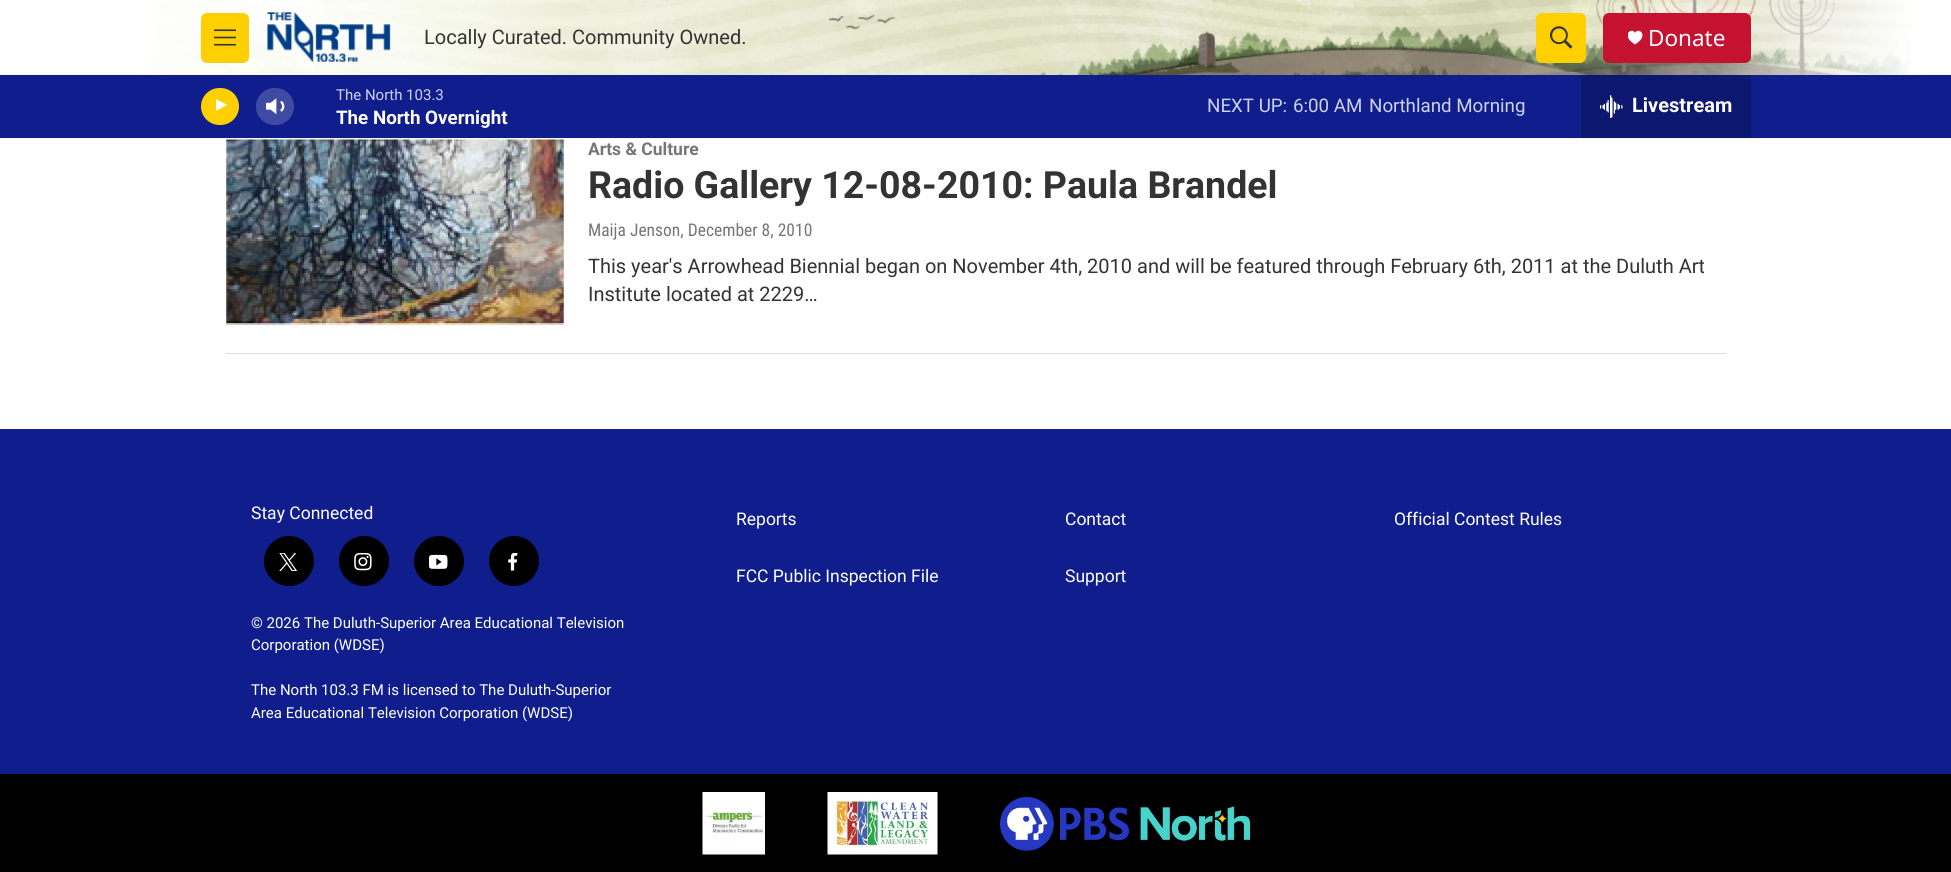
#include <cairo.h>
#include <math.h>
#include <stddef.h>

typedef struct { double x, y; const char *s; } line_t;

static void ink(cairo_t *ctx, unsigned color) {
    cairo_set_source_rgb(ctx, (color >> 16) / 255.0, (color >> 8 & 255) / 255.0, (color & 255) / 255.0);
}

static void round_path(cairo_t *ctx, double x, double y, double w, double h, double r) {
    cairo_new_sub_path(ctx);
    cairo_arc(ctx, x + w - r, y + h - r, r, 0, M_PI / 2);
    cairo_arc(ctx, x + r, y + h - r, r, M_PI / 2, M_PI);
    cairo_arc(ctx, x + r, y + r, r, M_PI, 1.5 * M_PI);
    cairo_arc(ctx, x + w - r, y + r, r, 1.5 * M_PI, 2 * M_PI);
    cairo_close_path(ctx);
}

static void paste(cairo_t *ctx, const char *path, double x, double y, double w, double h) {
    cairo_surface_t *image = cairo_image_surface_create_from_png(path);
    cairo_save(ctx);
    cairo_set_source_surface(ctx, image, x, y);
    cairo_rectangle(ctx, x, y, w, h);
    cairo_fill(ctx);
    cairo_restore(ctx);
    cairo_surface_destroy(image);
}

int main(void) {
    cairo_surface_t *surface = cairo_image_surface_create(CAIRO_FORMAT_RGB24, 1951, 872);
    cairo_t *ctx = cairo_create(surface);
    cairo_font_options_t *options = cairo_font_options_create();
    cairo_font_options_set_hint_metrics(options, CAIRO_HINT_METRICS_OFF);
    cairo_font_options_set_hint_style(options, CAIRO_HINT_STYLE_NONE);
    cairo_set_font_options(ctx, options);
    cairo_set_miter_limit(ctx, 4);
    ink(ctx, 0xFFFFFF);
    cairo_paint(ctx);
    ink(ctx, 0xF5F5F5);
    cairo_rectangle(ctx, 0, 138, 1951, 1);
    cairo_fill(ctx);
    paste(ctx, "media/1.png", 151, 0, 1760, 75);
    ink(ctx, 0xFFCF00);
    round_path(ctx, 201, 13, 48, 50, 6);
    cairo_fill(ctx);
    paste(ctx, "media/2.png", 214, 29, 22, 17);
    paste(ctx, "media/3.png", 267, 12, 124, 50);
    cairo_select_font_face(ctx, "Roboto", CAIRO_FONT_SLANT_NORMAL, CAIRO_FONT_WEIGHT_NORMAL);
    cairo_set_font_size(ctx, 20);
    ink(ctx, 0x333333);
    cairo_move_to(ctx, 424, 44);
    cairo_show_text(ctx, "Locally Curated. Community Owned.");
    ink(ctx, 0xFFCF00);
    round_path(ctx, 1536, 13, 50, 50, 6);
    cairo_fill(ctx);
    paste(ctx, "media/4.png", 1550, 26, 23, 23);
    ink(ctx, 0xC41230);
    round_path(ctx, 1603, 13, 148, 50, 6);
    cairo_fill(ctx);
    cairo_save(ctx);
    cairo_rectangle(ctx, 1628, 30, 15, 15);
    cairo_clip(ctx);
    ink(ctx, 0xFFFFFF);
    cairo_new_path(ctx);
    cairo_move_to(ctx, 1635, 33);
    cairo_curve_to(ctx, 1632.5, 26.5, 1619.5, 35, 1635, 44.5);
    cairo_curve_to(ctx, 1650.5, 35, 1637.5, 26.5, 1635, 33);
    cairo_close_path(ctx);
    cairo_fill(ctx);
    cairo_restore(ctx);
    cairo_select_font_face(ctx, "Noto Sans", CAIRO_FONT_SLANT_NORMAL, CAIRO_FONT_WEIGHT_NORMAL);
    cairo_set_font_size(ctx, 22.5);
    ink(ctx, 0xFFFFFF);
    cairo_move_to(ctx, 1648, 46);
    cairo_show_text(ctx, "Donate");
    ink(ctx, 0x0F1E8C);
    cairo_rectangle(ctx, 0, 75, 1951, 63);
    cairo_fill(ctx);
    ink(ctx, 0xFFCF00);
    round_path(ctx, 201, 88, 38, 37, 18.5);
    cairo_fill(ctx);
    cairo_save(ctx);
    cairo_rectangle(ctx, 216, 98, 14, 18);
    cairo_clip(ctx);
    ink(ctx, 0xFFFFFF);
    cairo_new_path(ctx);
    cairo_move_to(ctx, 215.5, 99);
    cairo_line_to(ctx, 227.5, 105);
    cairo_line_to(ctx, 215.5, 111);
    cairo_close_path(ctx);
    cairo_fill(ctx);
    cairo_restore(ctx);
    paste(ctx, "media/5.png", 266, 98, 19, 17);
    cairo_set_source_rgba(ctx, 1, 1, 1, 0.2);
    round_path(ctx, 256, 88, 38, 37, 18.5);
    cairo_fill(ctx);
    cairo_select_font_face(ctx, "Roboto", CAIRO_FONT_SLANT_NORMAL, CAIRO_FONT_WEIGHT_NORMAL);
    cairo_set_font_size(ctx, 15);
    ink(ctx, 0xCFD2E8);
    cairo_move_to(ctx, 336, 100);
    cairo_show_text(ctx, "The North 103.3");
    cairo_select_font_face(ctx, "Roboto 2", CAIRO_FONT_SLANT_NORMAL, CAIRO_FONT_WEIGHT_BOLD);
    cairo_set_font_size(ctx, 18.75);
    ink(ctx, 0xFFFFFF);
    cairo_move_to(ctx, 336, 124);
    cairo_show_text(ctx, "The North Overnight");
    cairo_select_font_face(ctx, "Roboto", CAIRO_FONT_SLANT_NORMAL, CAIRO_FONT_WEIGHT_NORMAL);
    ink(ctx, 0xCFD2E8);
    {
        static const line_t items[] = {
            {1207, 112, "NEXT UP:"},
            {1293, 112, "6:00 AM"},
            {1369, 112, "Northland Morning"},
        };
        for (size_t i = 0; i < sizeof items / sizeof *items; i++) {
            cairo_move_to(ctx, items[i].x, items[i].y);
            cairo_show_text(ctx, items[i].s);
        }
    }
    ink(ctx, 0x0C1870);
    cairo_rectangle(ctx, 1581, 75, 170, 63);
    cairo_fill(ctx);
    paste(ctx, "media/6.png", 1600, 95, 23, 23);
    cairo_select_font_face(ctx, "Roboto 2", CAIRO_FONT_SLANT_NORMAL, CAIRO_FONT_WEIGHT_BOLD);
    cairo_set_font_size(ctx, 20);
    ink(ctx, 0xFFFFFF);
    cairo_move_to(ctx, 1632, 112);
    cairo_show_text(ctx, "Livestream");
    ink(ctx, 0xDCDCDC);
    cairo_rectangle(ctx, 226, 353, 1500, 1);
    cairo_fill(ctx);
    paste(ctx, "media/7.png", 226, 139, 338, 188);
    cairo_select_font_face(ctx, "Roboto", CAIRO_FONT_SLANT_NORMAL, CAIRO_FONT_WEIGHT_BOLD);
    cairo_set_font_size(ctx, 17.5);
    ink(ctx, 0x767676);
    cairo_move_to(ctx, 588, 155);
    cairo_show_text(ctx, "Arts & Culture");
    cairo_set_font_size(ctx, 37.5);
    ink(ctx, 0x333333);
    cairo_move_to(ctx, 588, 198);
    cairo_show_text(ctx, "Radio Gallery 12-08-2010: Paula Brandel");
    cairo_select_font_face(ctx, "Roboto Condensed", CAIRO_FONT_SLANT_NORMAL, CAIRO_FONT_WEIGHT_NORMAL);
    cairo_set_font_size(ctx, 17.5);
    ink(ctx, 0x767676);
    cairo_move_to(ctx, 588, 236);
    cairo_show_text(ctx, "Maija Jenson, December 8, 2010");
    cairo_select_font_face(ctx, "Roboto", CAIRO_FONT_SLANT_NORMAL, CAIRO_FONT_WEIGHT_NORMAL);
    cairo_set_font_size(ctx, 20);
    ink(ctx, 0x333333);
    cairo_move_to(ctx, 588, 273);
    cairo_show_text(ctx, "This year's Arrowhead Biennial began on November 4th, 2010 and will be featured through February 6th, 2011 at the Duluth Art");
    cairo_move_to(ctx, 588, 301);
    cairo_show_text(ctx, "Institute located at 2229…");
    ink(ctx, 0x0F1E8C);
    cairo_rectangle(ctx, 0, 429, 1951, 345);
    cairo_fill(ctx);
    cairo_set_font_size(ctx, 17.5);
    ink(ctx, 0xFFFFFF);
    cairo_move_to(ctx, 251, 519);
    cairo_show_text(ctx, "Stay Connected");
    ink(ctx, 0x000000);
    cairo_new_path(ctx);
    cairo_arc(ctx, 289, 561, 25, 0, 2 * M_PI);
    cairo_fill(ctx);
    paste(ctx, "media/8.png", 279, 553, 18, 18);
    cairo_arc(ctx, 364, 561, 25, 0, 2 * M_PI);
    cairo_fill(ctx);
    paste(ctx, "media/9.png", 354, 553, 18, 18);
    cairo_arc(ctx, 439, 561, 25, 0, 2 * M_PI);
    cairo_fill(ctx);
    paste(ctx, "media/10.png", 429, 554, 19, 15);
    cairo_arc(ctx, 514, 561, 25, 0, 2 * M_PI);
    cairo_fill(ctx);
    paste(ctx, "media/11.png", 508, 553, 10, 18);
    cairo_set_font_size(ctx, 15);
    ink(ctx, 0xFFFFFF);
    {
        static const line_t items[] = {
            {251, 628, "© 2026 The Duluth-Superior Area Educational Television"},
            {251, 650, "Corporation (WDSE)"},
            {251, 695, "The North 103.3 FM is licensed to The Duluth-Superior"},
            {251, 718, "Area Educational Television Corporation (WDSE)"},
        };
        for (size_t i = 0; i < sizeof items / sizeof *items; i++) {
            cairo_move_to(ctx, items[i].x, items[i].y);
            cairo_show_text(ctx, items[i].s);
        }
    }
    cairo_set_font_size(ctx, 17.5);
    {
        static const line_t items[] = {
            {736, 525, "Reports"},
            {1065, 525, "Contact"},
            {1394, 525, "Official Contest Rules"},
            {736, 582, "FCC Public Inspection File"},
            {1065, 582, "Support"},
        };
        for (size_t i = 0; i < sizeof items / sizeof *items; i++) {
            cairo_move_to(ctx, items[i].x, items[i].y);
            cairo_show_text(ctx, items[i].s);
        }
    }
    ink(ctx, 0x000000);
    cairo_rectangle(ctx, 0, 774, 1951, 98);
    cairo_fill(ctx);
    paste(ctx, "media/12.png", 702, 792, 63, 63);
    paste(ctx, "media/13.png", 827, 792, 111, 63);
    paste(ctx, "media/14.png", 1000, 797, 250, 54);
    cairo_surface_write_to_png(surface, "image.png");
    cairo_font_options_destroy(options);
    cairo_destroy(ctx);
    cairo_surface_destroy(surface);
    return 0;
}
